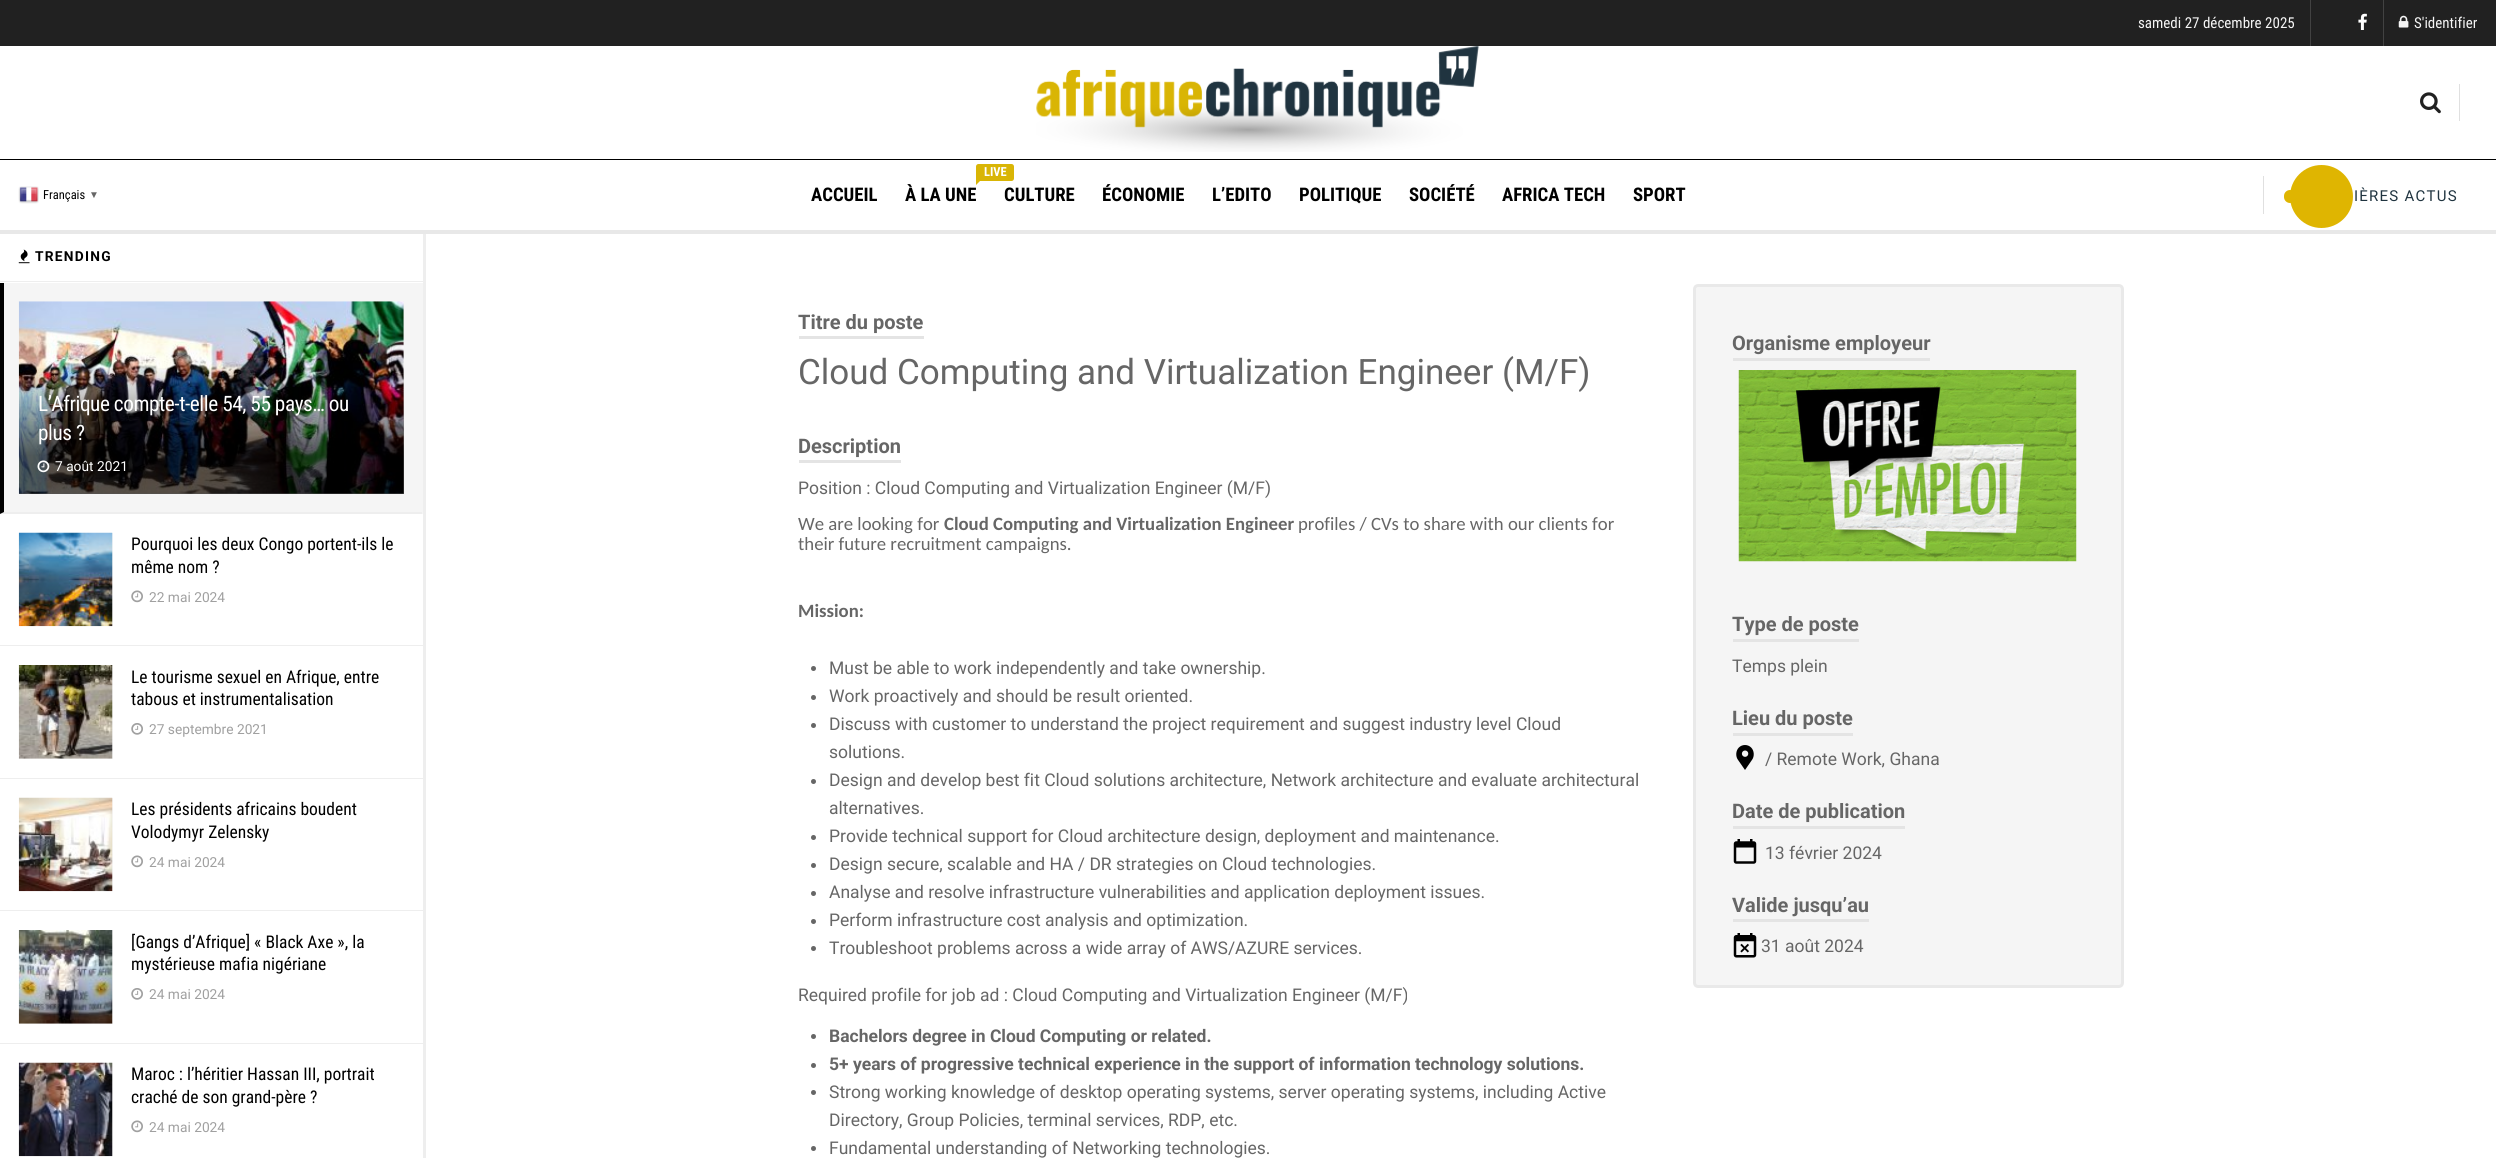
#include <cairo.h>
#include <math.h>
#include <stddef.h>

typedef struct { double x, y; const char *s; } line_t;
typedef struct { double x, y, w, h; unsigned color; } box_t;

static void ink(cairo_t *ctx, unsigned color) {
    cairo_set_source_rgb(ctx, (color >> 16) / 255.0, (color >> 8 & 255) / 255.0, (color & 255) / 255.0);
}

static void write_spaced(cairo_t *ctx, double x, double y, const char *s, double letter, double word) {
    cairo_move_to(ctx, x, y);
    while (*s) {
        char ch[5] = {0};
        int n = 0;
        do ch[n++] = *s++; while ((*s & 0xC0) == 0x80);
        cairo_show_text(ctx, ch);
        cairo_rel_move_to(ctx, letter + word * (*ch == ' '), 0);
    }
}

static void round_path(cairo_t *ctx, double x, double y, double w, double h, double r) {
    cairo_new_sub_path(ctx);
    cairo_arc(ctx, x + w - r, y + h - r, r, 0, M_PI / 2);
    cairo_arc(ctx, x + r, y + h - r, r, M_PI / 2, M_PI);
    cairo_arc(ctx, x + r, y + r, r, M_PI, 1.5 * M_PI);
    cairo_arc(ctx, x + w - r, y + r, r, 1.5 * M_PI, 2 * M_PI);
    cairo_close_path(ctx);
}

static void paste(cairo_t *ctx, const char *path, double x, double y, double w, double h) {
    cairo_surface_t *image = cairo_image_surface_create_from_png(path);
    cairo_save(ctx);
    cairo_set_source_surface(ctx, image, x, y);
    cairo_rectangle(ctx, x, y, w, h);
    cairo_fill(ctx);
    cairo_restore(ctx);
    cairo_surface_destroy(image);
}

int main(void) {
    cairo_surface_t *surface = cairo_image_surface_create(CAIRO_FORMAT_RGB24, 2496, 1158);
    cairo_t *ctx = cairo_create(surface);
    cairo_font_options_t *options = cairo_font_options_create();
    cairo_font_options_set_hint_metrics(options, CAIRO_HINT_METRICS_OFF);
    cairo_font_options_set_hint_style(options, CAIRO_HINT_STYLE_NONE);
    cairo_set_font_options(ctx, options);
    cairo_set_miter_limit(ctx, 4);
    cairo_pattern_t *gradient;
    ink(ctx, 0xFFFFFF);
    cairo_paint(ctx);
    {
        static const box_t items[] = {
            {0, 0, 2496, 46, 0x212121},
            {2383, 0, 1, 46, 0x424242},
            {2310, 0, 1, 46, 0x424242},
        };
        for (size_t i = 0; i < sizeof items / sizeof *items; i++) {
            ink(ctx, items[i].color);
            cairo_rectangle(ctx, items[i].x, items[i].y, items[i].w, items[i].h);
            cairo_fill(ctx);
        }
    }
    cairo_select_font_face(ctx, "Roboto Condensed", CAIRO_FONT_SLANT_NORMAL, CAIRO_FONT_WEIGHT_NORMAL);
    cairo_set_font_size(ctx, 15);
    ink(ctx, 0xF5F5F5);
    cairo_move_to(ctx, 2138, 28);
    cairo_show_text(ctx, "samedi 27 décembre 2025");
    paste(ctx, "media/1.png", 2358, 13, 9, 17);
    paste(ctx, "media/2.png", 2398, 15, 11, 13);
    cairo_move_to(ctx, 2414, 28);
    cairo_show_text(ctx, "S'identifier");
    paste(ctx, "media/3.png", 1036, 46, 443, 106);
    paste(ctx, "media/4.png", 2420, 92, 21, 22);
    {
        static const box_t items[] = {
            {2459, 84, 1, 37, 0xE0E0E0},
            {0, 159, 2496, 1, 0x000000},
            {0, 230, 2496, 4, 0xE8E8E8},
        };
        for (size_t i = 0; i < sizeof items / sizeof *items; i++) {
            ink(ctx, items[i].color);
            cairo_rectangle(ctx, items[i].x, items[i].y, items[i].w, items[i].h);
            cairo_fill(ctx);
        }
    }
    paste(ctx, "media/5.png", 18, 186, 21, 18);
    cairo_set_font_size(ctx, 12.5);
    ink(ctx, 0x000000);
    cairo_move_to(ctx, 43, 199);
    cairo_show_text(ctx, "Français");
    cairo_select_font_face(ctx, "Liberation Sans", CAIRO_FONT_SLANT_NORMAL, CAIRO_FONT_WEIGHT_BOLD);
    cairo_set_font_size(ctx, 10);
    ink(ctx, 0x666666);
    cairo_move_to(ctx, 89, 198);
    cairo_show_text(ctx, "▼");
    cairo_select_font_face(ctx, "Roboto Condensed", CAIRO_FONT_SLANT_NORMAL, CAIRO_FONT_WEIGHT_BOLD);
    cairo_set_font_size(ctx, 18.75);
    ink(ctx, 0x000000);
    cairo_move_to(ctx, 811, 201);
    cairo_show_text(ctx, "ACCUEIL");
    ink(ctx, 0xD9B505);
    round_path(ctx, 976, 164, 38, 17, 2.5);
    cairo_fill(ctx);
    cairo_set_font_size(ctx, 12.5);
    ink(ctx, 0xFFFFFF);
    cairo_move_to(ctx, 984, 176);
    cairo_show_text(ctx, "LIVE");
    ink(ctx, 0xD9B505);
    cairo_new_path(ctx);
    cairo_move_to(ctx, 976, 185);
    cairo_line_to(ctx, 976, 177.5);
    cairo_line_to(ctx, 980, 181);
    cairo_close_path(ctx);
    cairo_fill(ctx);
    cairo_set_font_size(ctx, 18.75);
    ink(ctx, 0x000000);
    {
        static const line_t items[] = {
            {905, 201, "À LA UNE"},
            {1004, 201, "CULTURE"},
            {1102, 201, "ÉCONOMIE"},
            {1212, 201, "L’EDITO"},
            {1299, 201, "POLITIQUE"},
            {1409, 201, "SOCIÉTÉ"},
            {1502, 201, "AFRICA TECH"},
            {1633, 201, "SPORT"},
        };
        for (size_t i = 0; i < sizeof items / sizeof *items; i++) {
            cairo_move_to(ctx, items[i].x, items[i].y);
            cairo_show_text(ctx, items[i].s);
        }
    }
    ink(ctx, 0xE0E0E0);
    cairo_rectangle(ctx, 2263, 176, 1, 38);
    cairo_fill(ctx);
    ink(ctx, 0xDFB501);
    round_path(ctx, 2284, 190, 12, 13, 6);
    cairo_fill(ctx);
    cairo_arc(ctx, 2321.5, 196.5, 31.5, 0, 2 * M_PI);
    cairo_fill(ctx);
    cairo_select_font_face(ctx, "Roboto", CAIRO_FONT_SLANT_NORMAL, CAIRO_FONT_WEIGHT_NORMAL);
    cairo_set_font_size(ctx, 15);
    ink(ctx, 0x203440);
    write_spaced(ctx, 2354, 201, "IÈRES ACTUS", 1.25, 0);
    cairo_select_font_face(ctx, "Roboto", CAIRO_FONT_SLANT_NORMAL, CAIRO_FONT_WEIGHT_BOLD);
    cairo_set_font_size(ctx, 20);
    ink(ctx, 0x666666);
    cairo_move_to(ctx, 798, 329);
    cairo_show_text(ctx, "Titre du poste");
    ink(ctx, 0xE4E4E4);
    cairo_rectangle(ctx, 799, 336, 125, 3);
    cairo_fill(ctx);
    cairo_select_font_face(ctx, "Roboto", CAIRO_FONT_SLANT_NORMAL, CAIRO_FONT_WEIGHT_NORMAL);
    cairo_set_font_size(ctx, 35);
    ink(ctx, 0x666666);
    cairo_move_to(ctx, 798, 384);
    cairo_show_text(ctx, "Cloud Computing and Virtualization Engineer (M/F)");
    cairo_select_font_face(ctx, "Roboto", CAIRO_FONT_SLANT_NORMAL, CAIRO_FONT_WEIGHT_BOLD);
    cairo_set_font_size(ctx, 20);
    cairo_move_to(ctx, 798, 453);
    cairo_show_text(ctx, "Description");
    ink(ctx, 0xE4E4E4);
    cairo_rectangle(ctx, 799, 460, 102, 3);
    cairo_fill(ctx);
    cairo_select_font_face(ctx, "Roboto", CAIRO_FONT_SLANT_NORMAL, CAIRO_FONT_WEIGHT_NORMAL);
    cairo_set_font_size(ctx, 17.5);
    ink(ctx, 0x666666);
    cairo_move_to(ctx, 798, 494);
    cairo_show_text(ctx, "Position : Cloud Computing and Virtualization Engineer (M/F)");
    cairo_select_font_face(ctx, "Carlito", CAIRO_FONT_SLANT_NORMAL, CAIRO_FONT_WEIGHT_NORMAL);
    cairo_set_font_size(ctx, 18.75);
    cairo_move_to(ctx, 798, 530);
    cairo_show_text(ctx, "We are looking for");
    cairo_select_font_face(ctx, "Carlito", CAIRO_FONT_SLANT_NORMAL, CAIRO_FONT_WEIGHT_BOLD);
    cairo_move_to(ctx, 944, 530);
    cairo_show_text(ctx, "Cloud Computing and Virtualization Engineer");
    cairo_select_font_face(ctx, "Carlito", CAIRO_FONT_SLANT_NORMAL, CAIRO_FONT_WEIGHT_NORMAL);
    cairo_move_to(ctx, 1298, 530);
    cairo_show_text(ctx, "profiles / CVs to share with our clients for");
    cairo_move_to(ctx, 798, 550);
    cairo_show_text(ctx, "their future recruitment campaigns.");
    cairo_select_font_face(ctx, "Carlito", CAIRO_FONT_SLANT_NORMAL, CAIRO_FONT_WEIGHT_BOLD);
    cairo_move_to(ctx, 798, 617);
    cairo_show_text(ctx, "Mission:");
    cairo_new_path(ctx);
    cairo_arc(ctx, 813.5, 668.5, 2.5, 0, 2 * M_PI);
    cairo_fill(ctx);
    cairo_select_font_face(ctx, "Roboto", CAIRO_FONT_SLANT_NORMAL, CAIRO_FONT_WEIGHT_NORMAL);
    cairo_set_font_size(ctx, 17.5);
    cairo_move_to(ctx, 829, 674);
    cairo_show_text(ctx, "Must be able to work independently and take ownership.");
    cairo_new_path(ctx);
    cairo_arc(ctx, 813.5, 697.5, 2.5, 0, 2 * M_PI);
    cairo_fill(ctx);
    cairo_move_to(ctx, 829, 702);
    cairo_show_text(ctx, "Work proactively and should be result oriented.");
    cairo_new_path(ctx);
    cairo_arc(ctx, 813.5, 725.5, 2.5, 0, 2 * M_PI);
    cairo_fill(ctx);
    cairo_move_to(ctx, 829, 730);
    cairo_show_text(ctx, "Discuss with customer to understand the project requirement and suggest industry level Cloud");
    cairo_move_to(ctx, 829, 758);
    cairo_show_text(ctx, "solutions.");
    cairo_new_path(ctx);
    cairo_arc(ctx, 813.5, 781.5, 2.5, 0, 2 * M_PI);
    cairo_fill(ctx);
    cairo_move_to(ctx, 829, 786);
    cairo_show_text(ctx, "Design and develop best fit Cloud solutions architecture, Network architecture and evaluate architectural");
    cairo_move_to(ctx, 829, 814);
    cairo_show_text(ctx, "alternatives.");
    cairo_new_path(ctx);
    cairo_arc(ctx, 813.5, 837.5, 2.5, 0, 2 * M_PI);
    cairo_fill(ctx);
    cairo_move_to(ctx, 829, 842);
    cairo_show_text(ctx, "Provide technical support for Cloud architecture design, deployment and maintenance.");
    cairo_new_path(ctx);
    cairo_arc(ctx, 813.5, 865.5, 2.5, 0, 2 * M_PI);
    cairo_fill(ctx);
    cairo_move_to(ctx, 829, 870);
    cairo_show_text(ctx, "Design secure, scalable and HA / DR strategies on Cloud technologies.");
    cairo_new_path(ctx);
    cairo_arc(ctx, 813.5, 893.5, 2.5, 0, 2 * M_PI);
    cairo_fill(ctx);
    cairo_move_to(ctx, 829, 898);
    cairo_show_text(ctx, "Analyse and resolve infrastructure vulnerabilities and application deployment issues.");
    cairo_new_path(ctx);
    cairo_arc(ctx, 813.5, 921.5, 2.5, 0, 2 * M_PI);
    cairo_fill(ctx);
    cairo_move_to(ctx, 829, 926);
    cairo_show_text(ctx, "Perform infrastructure cost analysis and optimization.");
    cairo_new_path(ctx);
    cairo_arc(ctx, 813.5, 948.5, 2.5, 0, 2 * M_PI);
    cairo_fill(ctx);
    cairo_move_to(ctx, 829, 954);
    cairo_show_text(ctx, "Troubleshoot problems across a wide array of AWS/AZURE services.");
    cairo_move_to(ctx, 798, 1001);
    cairo_show_text(ctx, "Required profile for job ad : Cloud Computing and Virtualization Engineer (M/F)");
    cairo_new_path(ctx);
    cairo_arc(ctx, 813.5, 1036.5, 2.5, 0, 2 * M_PI);
    cairo_fill(ctx);
    cairo_select_font_face(ctx, "Roboto", CAIRO_FONT_SLANT_NORMAL, CAIRO_FONT_WEIGHT_BOLD);
    cairo_move_to(ctx, 829, 1042);
    cairo_show_text(ctx, "Bachelors degree in Cloud Computing or related.");
    cairo_new_path(ctx);
    cairo_arc(ctx, 813.5, 1065.5, 2.5, 0, 2 * M_PI);
    cairo_fill(ctx);
    cairo_move_to(ctx, 829, 1070);
    cairo_show_text(ctx, "5+ years of progressive technical experience in the support of information technology solutions.");
    cairo_new_path(ctx);
    cairo_arc(ctx, 813.5, 1092.5, 2.5, 0, 2 * M_PI);
    cairo_fill(ctx);
    cairo_select_font_face(ctx, "Roboto", CAIRO_FONT_SLANT_NORMAL, CAIRO_FONT_WEIGHT_NORMAL);
    cairo_move_to(ctx, 829, 1098);
    cairo_show_text(ctx, "Strong working knowledge of desktop operating systems, server operating systems, including Active");
    cairo_move_to(ctx, 829, 1126);
    cairo_show_text(ctx, "Directory, Group Policies, terminal services, RDP, etc.");
    cairo_new_path(ctx);
    cairo_arc(ctx, 813.5, 1148.5, 2.5, 0, 2 * M_PI);
    cairo_fill(ctx);
    cairo_move_to(ctx, 829, 1154);
    cairo_show_text(ctx, "Fundamental understanding of Networking technologies.");
    ink(ctx, 0xF5F5F5);
    round_path(ctx, 1694.5, 285.5, 428, 701, 3.5);
    cairo_fill_preserve(ctx);
    ink(ctx, 0xE9E9E9);
    cairo_set_line_width(ctx, 3);
    cairo_stroke(ctx);
    cairo_select_font_face(ctx, "Roboto", CAIRO_FONT_SLANT_NORMAL, CAIRO_FONT_WEIGHT_BOLD);
    cairo_set_font_size(ctx, 20);
    ink(ctx, 0x666666);
    cairo_move_to(ctx, 1732, 350);
    cairo_show_text(ctx, "Organisme employeur");
    ink(ctx, 0xE4E4E4);
    cairo_rectangle(ctx, 1733, 358, 197, 3);
    cairo_fill(ctx);
    paste(ctx, "media/6.png", 1738, 370, 339, 192);
    ink(ctx, 0x666666);
    cairo_move_to(ctx, 1732, 631);
    cairo_show_text(ctx, "Type de poste");
    ink(ctx, 0xE4E4E4);
    cairo_rectangle(ctx, 1733, 639, 126, 3);
    cairo_fill(ctx);
    cairo_select_font_face(ctx, "Roboto", CAIRO_FONT_SLANT_NORMAL, CAIRO_FONT_WEIGHT_NORMAL);
    cairo_set_font_size(ctx, 17.5);
    ink(ctx, 0x666666);
    cairo_move_to(ctx, 1732, 672);
    cairo_show_text(ctx, "Temps plein");
    cairo_select_font_face(ctx, "Roboto", CAIRO_FONT_SLANT_NORMAL, CAIRO_FONT_WEIGHT_BOLD);
    cairo_set_font_size(ctx, 20);
    cairo_move_to(ctx, 1732, 725);
    cairo_show_text(ctx, "Lieu du poste");
    ink(ctx, 0xE4E4E4);
    cairo_rectangle(ctx, 1733, 733, 120, 3);
    cairo_fill(ctx);
    paste(ctx, "media/7.png", 1736, 745, 18, 25);
    cairo_select_font_face(ctx, "Roboto", CAIRO_FONT_SLANT_NORMAL, CAIRO_FONT_WEIGHT_NORMAL);
    cairo_set_font_size(ctx, 17.5);
    ink(ctx, 0x666666);
    cairo_move_to(ctx, 1765, 765);
    cairo_show_text(ctx, "/ Remote Work, Ghana");
    cairo_select_font_face(ctx, "Roboto", CAIRO_FONT_SLANT_NORMAL, CAIRO_FONT_WEIGHT_BOLD);
    cairo_set_font_size(ctx, 20);
    cairo_move_to(ctx, 1732, 818);
    cairo_show_text(ctx, "Date de publication");
    ink(ctx, 0xE4E4E4);
    cairo_rectangle(ctx, 1733, 826, 172, 3);
    cairo_fill(ctx);
    paste(ctx, "media/8.png", 1733, 839, 24, 25);
    cairo_select_font_face(ctx, "Roboto", CAIRO_FONT_SLANT_NORMAL, CAIRO_FONT_WEIGHT_NORMAL);
    cairo_set_font_size(ctx, 17.5);
    ink(ctx, 0x666666);
    cairo_move_to(ctx, 1765, 859);
    cairo_show_text(ctx, "13 février 2024");
    cairo_select_font_face(ctx, "Roboto", CAIRO_FONT_SLANT_NORMAL, CAIRO_FONT_WEIGHT_BOLD);
    cairo_set_font_size(ctx, 20);
    cairo_move_to(ctx, 1732, 912);
    cairo_show_text(ctx, "Valide jusqu’au");
    ink(ctx, 0xE4E4E4);
    cairo_rectangle(ctx, 1733, 919, 136, 3);
    cairo_fill(ctx);
    paste(ctx, "media/9.png", 1733, 933, 24, 25);
    cairo_select_font_face(ctx, "Roboto", CAIRO_FONT_SLANT_NORMAL, CAIRO_FONT_WEIGHT_NORMAL);
    cairo_set_font_size(ctx, 17.5);
    ink(ctx, 0x666666);
    cairo_move_to(ctx, 1761, 952);
    cairo_show_text(ctx, "31 août 2024");
    ink(ctx, 0xEEEEEE);
    cairo_rectangle(ctx, 423, 234, 3, 924);
    cairo_fill(ctx);
    cairo_rectangle(ctx, 0, 281, 423, 1);
    cairo_fill(ctx);
    paste(ctx, "media/10.png", 18, 249, 12, 15);
    cairo_select_font_face(ctx, "Roboto", CAIRO_FONT_SLANT_NORMAL, CAIRO_FONT_WEIGHT_BOLD);
    cairo_set_font_size(ctx, 13.75);
    ink(ctx, 0x000000);
    write_spaced(ctx, 35, 261, "TRENDING", 1.25, 0);
    ink(ctx, 0xF5F5F5);
    cairo_rectangle(ctx, 0, 283, 423, 231);
    cairo_fill(ctx);
    ink(ctx, 0xEEEEEE);
    cairo_new_path(ctx);
    cairo_move_to(ctx, 422, 514);
    cairo_line_to(ctx, 0, 514);
    cairo_line_to(ctx, 4, 512);
    cairo_line_to(ctx, 422, 512);
    cairo_close_path(ctx);
    cairo_fill(ctx);
    cairo_save(ctx);
    cairo_rectangle(ctx, 0, 283, 423, 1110);
    cairo_clip(ctx);
    ink(ctx, 0x000000);
    cairo_new_path(ctx);
    cairo_move_to(ctx, 0, 514);
    cairo_line_to(ctx, 0, 282);
    cairo_line_to(ctx, 4, 282);
    cairo_line_to(ctx, 4, 512);
    cairo_close_path(ctx);
    cairo_fill(ctx);
    cairo_restore(ctx);
    paste(ctx, "media/11.png", 18, 301, 386, 193);
    gradient = cairo_pattern_create_linear(211, 365, 211, 494);
    cairo_pattern_add_color_stop_rgba(gradient, 0, 0, 0, 0, 0);
    cairo_pattern_add_color_stop_rgba(gradient, 0.7, 0, 0, 0, 0.65);
    cairo_set_source(ctx, gradient);
    cairo_pattern_destroy(gradient);
    cairo_rectangle(ctx, 19, 368, 385, 126);
    cairo_fill(ctx);
    cairo_select_font_face(ctx, "Roboto Condensed", CAIRO_FONT_SLANT_NORMAL, CAIRO_FONT_WEIGHT_NORMAL);
    cairo_set_font_size(ctx, 21.25);
    ink(ctx, 0xFFFFFF);
    write_spaced(ctx, 38, 411, "L’Afrique compte-t-elle 54, 55 pays… ou", -0.45, 0);
    write_spaced(ctx, 38, 440, "plus ?", -0.45, 0);
    paste(ctx, "media/12.png", 37, 460, 13, 13);
    cairo_select_font_face(ctx, "Roboto", CAIRO_FONT_SLANT_NORMAL, CAIRO_FONT_WEIGHT_NORMAL);
    cairo_set_font_size(ctx, 13.75);
    cairo_move_to(ctx, 55, 471);
    cairo_show_text(ctx, "7 août 2021");
    ink(ctx, 0xEEEEEE);
    cairo_rectangle(ctx, 0, 645, 423, 1);
    cairo_fill(ctx);
    ink(ctx, 0xF7F7F7);
    cairo_rectangle(ctx, 112, 533, 1, 93);
    cairo_fill(ctx);
    paste(ctx, "media/13.png", 18, 532, 95, 95);
    cairo_select_font_face(ctx, "Roboto Condensed", CAIRO_FONT_SLANT_NORMAL, CAIRO_FONT_WEIGHT_NORMAL);
    cairo_set_font_size(ctx, 17.5);
    ink(ctx, 0x000000);
    cairo_move_to(ctx, 131, 550);
    cairo_show_text(ctx, "Pourquoi les deux Congo portent-ils le");
    cairo_move_to(ctx, 131, 573);
    cairo_show_text(ctx, "même nom ?");
    paste(ctx, "media/14.png", 131, 590, 12, 13);
    cairo_select_font_face(ctx, "Roboto", CAIRO_FONT_SLANT_NORMAL, CAIRO_FONT_WEIGHT_NORMAL);
    cairo_set_font_size(ctx, 13.75);
    ink(ctx, 0xA0A0A0);
    cairo_move_to(ctx, 149, 602);
    cairo_show_text(ctx, "22 mai 2024");
    ink(ctx, 0xEEEEEE);
    cairo_rectangle(ctx, 0, 778, 423, 1);
    cairo_fill(ctx);
    ink(ctx, 0xF7F7F7);
    cairo_rectangle(ctx, 19, 665, 94, 94);
    cairo_fill(ctx);
    paste(ctx, "media/15.png", 18, 665, 95, 94);
    cairo_select_font_face(ctx, "Roboto Condensed", CAIRO_FONT_SLANT_NORMAL, CAIRO_FONT_WEIGHT_NORMAL);
    cairo_set_font_size(ctx, 17.5);
    ink(ctx, 0x000000);
    cairo_move_to(ctx, 131, 683);
    cairo_show_text(ctx, "Le tourisme sexuel en Afrique, entre");
    cairo_move_to(ctx, 131, 705);
    cairo_show_text(ctx, "tabous et instrumentalisation");
    paste(ctx, "media/16.png", 131, 723, 12, 12);
    cairo_select_font_face(ctx, "Roboto", CAIRO_FONT_SLANT_NORMAL, CAIRO_FONT_WEIGHT_NORMAL);
    cairo_set_font_size(ctx, 13.75);
    ink(ctx, 0xA0A0A0);
    cairo_move_to(ctx, 149, 734);
    cairo_show_text(ctx, "27 septembre 2021");
    ink(ctx, 0xEEEEEE);
    cairo_rectangle(ctx, 0, 910, 423, 1);
    cairo_fill(ctx);
    ink(ctx, 0xF7F7F7);
    cairo_rectangle(ctx, 112, 798, 1, 93);
    cairo_fill(ctx);
    paste(ctx, "media/17.png", 18, 797, 95, 95);
    cairo_select_font_face(ctx, "Roboto Condensed", CAIRO_FONT_SLANT_NORMAL, CAIRO_FONT_WEIGHT_NORMAL);
    cairo_set_font_size(ctx, 17.5);
    ink(ctx, 0x000000);
    cairo_move_to(ctx, 131, 815);
    cairo_show_text(ctx, "Les présidents africains boudent");
    cairo_move_to(ctx, 131, 838);
    cairo_show_text(ctx, "Volodymyr Zelensky");
    paste(ctx, "media/14.png", 131, 855, 12, 13);
    cairo_select_font_face(ctx, "Roboto", CAIRO_FONT_SLANT_NORMAL, CAIRO_FONT_WEIGHT_NORMAL);
    cairo_set_font_size(ctx, 13.75);
    ink(ctx, 0xA0A0A0);
    cairo_move_to(ctx, 149, 867);
    cairo_show_text(ctx, "24 mai 2024");
    ink(ctx, 0xEEEEEE);
    cairo_rectangle(ctx, 0, 1043, 423, 1);
    cairo_fill(ctx);
    ink(ctx, 0xF7F7F7);
    cairo_rectangle(ctx, 19, 930, 94, 94);
    cairo_fill(ctx);
    paste(ctx, "media/18.png", 18, 930, 95, 94);
    cairo_select_font_face(ctx, "Roboto Condensed", CAIRO_FONT_SLANT_NORMAL, CAIRO_FONT_WEIGHT_NORMAL);
    cairo_set_font_size(ctx, 17.5);
    ink(ctx, 0x000000);
    cairo_move_to(ctx, 131, 948);
    cairo_show_text(ctx, "[Gangs d’Afrique] « Black Axe », la");
    cairo_move_to(ctx, 131, 970);
    cairo_show_text(ctx, "mystérieuse mafia nigériane");
    paste(ctx, "media/16.png", 131, 988, 12, 12);
    cairo_select_font_face(ctx, "Roboto", CAIRO_FONT_SLANT_NORMAL, CAIRO_FONT_WEIGHT_NORMAL);
    cairo_set_font_size(ctx, 13.75);
    ink(ctx, 0xA0A0A0);
    cairo_move_to(ctx, 149, 999);
    cairo_show_text(ctx, "24 mai 2024");
    ink(ctx, 0xF7F7F7);
    cairo_rectangle(ctx, 112, 1063, 1, 93);
    cairo_fill(ctx);
    paste(ctx, "media/19.png", 18, 1062, 95, 95);
    cairo_select_font_face(ctx, "Roboto Condensed", CAIRO_FONT_SLANT_NORMAL, CAIRO_FONT_WEIGHT_NORMAL);
    cairo_set_font_size(ctx, 17.5);
    ink(ctx, 0x000000);
    cairo_move_to(ctx, 131, 1080);
    cairo_show_text(ctx, "Maroc : l’héritier Hassan III, portrait");
    cairo_move_to(ctx, 131, 1103);
    cairo_show_text(ctx, "craché de son grand-père ?");
    paste(ctx, "media/14.png", 131, 1120, 12, 13);
    cairo_select_font_face(ctx, "Roboto", CAIRO_FONT_SLANT_NORMAL, CAIRO_FONT_WEIGHT_NORMAL);
    cairo_set_font_size(ctx, 13.75);
    ink(ctx, 0xA0A0A0);
    cairo_move_to(ctx, 149, 1132);
    cairo_show_text(ctx, "24 mai 2024");
    cairo_surface_write_to_png(surface, "image.png");
    cairo_font_options_destroy(options);
    cairo_destroy(ctx);
    cairo_surface_destroy(surface);
    return 0;
}
